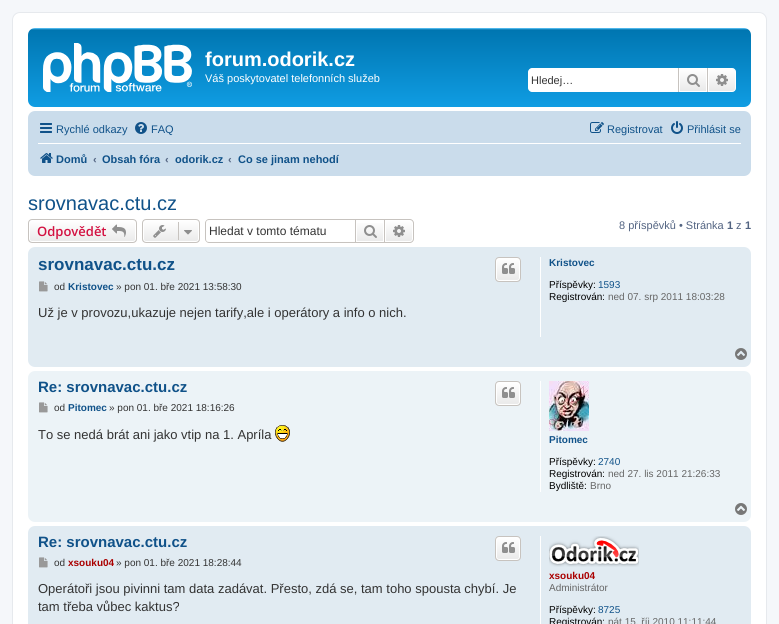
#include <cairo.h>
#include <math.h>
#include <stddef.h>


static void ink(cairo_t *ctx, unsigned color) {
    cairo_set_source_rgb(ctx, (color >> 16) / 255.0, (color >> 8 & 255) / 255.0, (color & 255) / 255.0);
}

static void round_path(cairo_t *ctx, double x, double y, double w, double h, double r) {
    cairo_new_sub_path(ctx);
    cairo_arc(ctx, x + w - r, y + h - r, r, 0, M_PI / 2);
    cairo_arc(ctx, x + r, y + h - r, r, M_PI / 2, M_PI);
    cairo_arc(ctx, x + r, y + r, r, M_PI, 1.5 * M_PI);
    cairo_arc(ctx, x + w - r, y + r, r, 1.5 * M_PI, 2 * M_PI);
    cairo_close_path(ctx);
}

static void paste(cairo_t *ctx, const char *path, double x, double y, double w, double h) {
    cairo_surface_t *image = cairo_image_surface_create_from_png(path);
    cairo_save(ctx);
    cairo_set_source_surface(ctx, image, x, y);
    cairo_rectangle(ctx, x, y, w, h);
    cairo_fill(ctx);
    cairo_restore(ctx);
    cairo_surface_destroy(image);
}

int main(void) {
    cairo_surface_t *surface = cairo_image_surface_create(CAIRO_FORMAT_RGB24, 779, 624);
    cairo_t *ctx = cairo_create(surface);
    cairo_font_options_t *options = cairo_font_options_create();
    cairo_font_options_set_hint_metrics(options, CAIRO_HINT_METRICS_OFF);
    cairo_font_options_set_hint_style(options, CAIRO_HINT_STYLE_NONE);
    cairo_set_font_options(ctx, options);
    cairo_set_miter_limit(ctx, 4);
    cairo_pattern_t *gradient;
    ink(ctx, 0xF5F7FA);
    cairo_paint(ctx);
    ink(ctx, 0xFFFFFF);
    round_path(ctx, 12.5, 12.5, 754, 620, 7.5);
    cairo_fill_preserve(ctx);
    ink(ctx, 0xE6E9ED);
    cairo_set_line_width(ctx, 1);
    cairo_stroke(ctx);
    gradient = cairo_pattern_create_linear(390, 28, 390, 120);
    cairo_pattern_add_color_stop_rgba(gradient, 0, 0.416, 0.808, 1, 1);
    cairo_pattern_add_color_stop_rgba(gradient, 0.02, 0, 0.463, 0.694, 1);
    cairo_pattern_add_color_stop_rgba(gradient, 1, 0.071, 0.639, 0.922, 1);
    cairo_set_source(ctx, gradient);
    cairo_pattern_destroy(gradient);
    round_path(ctx, 28, 28, 723, 79, 7);
    cairo_fill(ctx);
    paste(ctx, "media/1.png", 43, 43, 149, 49);
    cairo_select_font_face(ctx, "Liberation Sans", CAIRO_FONT_SLANT_NORMAL, CAIRO_FONT_WEIGHT_BOLD);
    cairo_set_font_size(ctx, 20);
    ink(ctx, 0xFFFFFF);
    cairo_move_to(ctx, 205, 66);
    cairo_show_text(ctx, "forum.odorik.cz");
    cairo_select_font_face(ctx, "Liberation Sans", CAIRO_FONT_SLANT_NORMAL, CAIRO_FONT_WEIGHT_NORMAL);
    cairo_set_font_size(ctx, 11);
    cairo_move_to(ctx, 205, 82);
    cairo_show_text(ctx, "Váš poskytovatel telefonních služeb");
    cairo_new_path(ctx);
    cairo_move_to(ctx, 532, 68);
    cairo_line_to(ctx, 678, 68);
    cairo_line_to(ctx, 678, 92);
    cairo_line_to(ctx, 532, 92);
    cairo_curve_to(ctx, 530, 92, 528, 90, 528, 88);
    cairo_line_to(ctx, 528, 72);
    cairo_curve_to(ctx, 528, 70, 530, 68, 532, 68);
    cairo_close_path(ctx);
    cairo_fill(ctx);
    ink(ctx, 0x333333);
    cairo_move_to(ctx, 531, 84);
    cairo_show_text(ctx, "Hledej…");
    gradient = cairo_pattern_create_linear(693, 68, 693, 92);
    cairo_pattern_add_color_stop_rgba(gradient, 0, 1, 1, 1, 1);
    cairo_pattern_add_color_stop_rgba(gradient, 1, 0.914, 0.914, 0.914, 1);
    cairo_set_source(ctx, gradient);
    cairo_pattern_destroy(gradient);
    cairo_rectangle(ctx, 680, 69, 26, 22);
    cairo_fill(ctx);
    cairo_rectangle(ctx, 679.5, 68.5, 27, 23);
    ink(ctx, 0xFFFFFF);
    cairo_stroke(ctx);
    ink(ctx, 0xC7C3BF);
    cairo_rectangle(ctx, 707, 68, 1, 24);
    cairo_fill(ctx);
    cairo_rectangle(ctx, 678, 68, 1, 24);
    cairo_fill(ctx);
    paste(ctx, "media/2.png", 687, 74, 13, 13);
    gradient = cairo_pattern_create_linear(722, 68, 722, 92);
    cairo_pattern_add_color_stop_rgba(gradient, 0, 1, 1, 1, 1);
    cairo_pattern_add_color_stop_rgba(gradient, 1, 0.914, 0.914, 0.914, 1);
    cairo_set_source(ctx, gradient);
    cairo_pattern_destroy(gradient);
    cairo_new_path(ctx);
    cairo_move_to(ctx, 708.5, 68.5);
    cairo_line_to(ctx, 732, 68.5);
    cairo_curve_to(ctx, 734, 68.5, 735.5, 70, 735.5, 72);
    cairo_line_to(ctx, 735.5, 88);
    cairo_curve_to(ctx, 735.5, 90, 734, 91.5, 732, 91.5);
    cairo_line_to(ctx, 708.5, 91.5);
    cairo_close_path(ctx);
    cairo_fill_preserve(ctx);
    ink(ctx, 0xFFFFFF);
    cairo_stroke(ctx);
    paste(ctx, "media/3.png", 716, 74, 12, 12);
    ink(ctx, 0xCADCEB);
    round_path(ctx, 28, 111, 723, 65, 7);
    cairo_fill(ctx);
    paste(ctx, "media/4.png", 40, 123, 12, 10);
    ink(ctx, 0x105289);
    cairo_move_to(ctx, 56, 133);
    cairo_show_text(ctx, "Rychlé odkazy");
    paste(ctx, "media/5.png", 135, 122, 12, 12);
    cairo_move_to(ctx, 151, 133);
    cairo_show_text(ctx, "FAQ");
    paste(ctx, "media/6.png", 590, 122, 14, 11);
    cairo_move_to(ctx, 607, 133);
    cairo_show_text(ctx, "Registrovat");
    paste(ctx, "media/7.png", 671, 121, 12, 13);
    cairo_move_to(ctx, 687, 133);
    cairo_show_text(ctx, "Přihlásit se");
    ink(ctx, 0xFFFFFF);
    cairo_rectangle(ctx, 38, 143, 703, 1);
    cairo_fill(ctx);
    paste(ctx, "media/8.png", 40, 153, 13, 10);
    cairo_select_font_face(ctx, "Liberation Sans", CAIRO_FONT_SLANT_NORMAL, CAIRO_FONT_WEIGHT_BOLD);
    ink(ctx, 0x105289);
    cairo_move_to(ctx, 56, 163);
    cairo_show_text(ctx, "Domů");
    ink(ctx, 0x536482);
    cairo_move_to(ctx, 93, 163);
    cairo_show_text(ctx, "‹");
    ink(ctx, 0x105289);
    cairo_move_to(ctx, 102, 163);
    cairo_show_text(ctx, "Obsah fóra");
    ink(ctx, 0x536482);
    cairo_move_to(ctx, 165, 163);
    cairo_show_text(ctx, "‹");
    ink(ctx, 0x105289);
    cairo_move_to(ctx, 175, 163);
    cairo_show_text(ctx, "odorik.cz");
    ink(ctx, 0x536482);
    cairo_move_to(ctx, 228, 163);
    cairo_show_text(ctx, "‹");
    ink(ctx, 0x105289);
    cairo_move_to(ctx, 238, 163);
    cairo_show_text(ctx, "Co se jinam nehodí");
    cairo_select_font_face(ctx, "Liberation Sans", CAIRO_FONT_SLANT_NORMAL, CAIRO_FONT_WEIGHT_NORMAL);
    cairo_set_font_size(ctx, 20);
    cairo_move_to(ctx, 28, 210);
    cairo_show_text(ctx, "srovnavac.ctu.cz");
    cairo_save(ctx);
    round_path(ctx, 28, 219, 109, 24, 4);
    cairo_clip(ctx);
    gradient = cairo_pattern_create_linear(83, 220, 83, 242);
    cairo_pattern_add_color_stop_rgba(gradient, 0, 1, 1, 1, 1);
    cairo_pattern_add_color_stop_rgba(gradient, 1, 0.914, 0.914, 0.914, 1);
    cairo_set_source(ctx, gradient);
    cairo_pattern_destroy(gradient);
    cairo_rectangle(ctx, 28, 220, 109, 22);
    cairo_fill(ctx);
    cairo_restore(ctx);
    round_path(ctx, 29.5, 220.5, 106, 21, 2.5);
    ink(ctx, 0xFFFFFF);
    cairo_stroke(ctx);
    round_path(ctx, 28.5, 219.5, 108, 23, 3.5);
    ink(ctx, 0xC7C3BF);
    cairo_stroke(ctx);
    cairo_select_font_face(ctx, "Open Sans SemiBold", CAIRO_FONT_SLANT_NORMAL, CAIRO_FONT_WEIGHT_NORMAL);
    cairo_set_font_size(ctx, 13);
    ink(ctx, 0xD31141);
    cairo_move_to(ctx, 37, 236);
    cairo_show_text(ctx, "Odpovědět");
    paste(ctx, "media/9.png", 112, 224, 14, 13);
    cairo_save(ctx);
    round_path(ctx, 142, 219, 58, 24, 4);
    cairo_clip(ctx);
    gradient = cairo_pattern_create_linear(171, 220, 171, 242);
    cairo_pattern_add_color_stop_rgba(gradient, 0, 1, 1, 1, 1);
    cairo_pattern_add_color_stop_rgba(gradient, 1, 0.914, 0.914, 0.914, 1);
    cairo_set_source(ctx, gradient);
    cairo_pattern_destroy(gradient);
    cairo_rectangle(ctx, 142, 220, 58, 22);
    cairo_fill(ctx);
    cairo_restore(ctx);
    round_path(ctx, 143.5, 220.5, 55, 21, 2.5);
    ink(ctx, 0xFFFFFF);
    cairo_stroke(ctx);
    round_path(ctx, 142.5, 219.5, 57, 23, 3.5);
    ink(ctx, 0xC7C3BF);
    cairo_stroke(ctx);
    paste(ctx, "media/10.png", 153, 225, 13, 13);
    cairo_rectangle(ctx, 178, 222, 1, 18);
    cairo_fill(ctx);
    paste(ctx, "media/11.png", 184, 230, 8, 5);
    cairo_set_fill_rule(ctx, CAIRO_FILL_RULE_EVEN_ODD);
    cairo_new_path(ctx);
    cairo_move_to(ctx, 209, 219);
    cairo_line_to(ctx, 355, 219);
    cairo_line_to(ctx, 355, 243);
    cairo_line_to(ctx, 209, 243);
    cairo_curve_to(ctx, 207, 243, 205, 241, 205, 239);
    cairo_line_to(ctx, 205, 223);
    cairo_curve_to(ctx, 205, 221, 207, 219, 209, 219);
    cairo_close_path(ctx);
    cairo_move_to(ctx, 209, 220);
    cairo_line_to(ctx, 355, 220);
    cairo_line_to(ctx, 355, 242);
    cairo_line_to(ctx, 209, 242);
    cairo_curve_to(ctx, 207, 242, 206, 241, 206, 239);
    cairo_line_to(ctx, 206, 223);
    cairo_curve_to(ctx, 206, 221, 207, 220, 209, 220);
    cairo_close_path(ctx);
    cairo_fill(ctx);
    cairo_select_font_face(ctx, "Liberation Sans", CAIRO_FONT_SLANT_NORMAL, CAIRO_FONT_WEIGHT_NORMAL);
    cairo_set_font_size(ctx, 12);
    ink(ctx, 0x333333);
    cairo_move_to(ctx, 209, 235);
    cairo_show_text(ctx, "Hledat v tomto tématu");
    gradient = cairo_pattern_create_linear(370, 220, 370, 242);
    cairo_pattern_add_color_stop_rgba(gradient, 0, 1, 1, 1, 1);
    cairo_pattern_add_color_stop_rgba(gradient, 1, 0.914, 0.914, 0.914, 1);
    cairo_set_source(ctx, gradient);
    cairo_pattern_destroy(gradient);
    cairo_rectangle(ctx, 357, 223, 26, 18);
    cairo_fill(ctx);
    cairo_rectangle(ctx, 355.5, 219.5, 29, 23);
    ink(ctx, 0xC7C3BF);
    cairo_stroke(ctx);
    paste(ctx, "media/12.png", 364, 225, 13, 13);
    gradient = cairo_pattern_create_linear(399, 220, 399, 242);
    cairo_pattern_add_color_stop_rgba(gradient, 0, 1, 1, 1, 1);
    cairo_pattern_add_color_stop_rgba(gradient, 1, 0.914, 0.914, 0.914, 1);
    cairo_set_source(ctx, gradient);
    cairo_pattern_destroy(gradient);
    cairo_new_path(ctx);
    cairo_move_to(ctx, 385.5, 220.5);
    cairo_line_to(ctx, 410, 220.5);
    cairo_curve_to(ctx, 411.5, 220.5, 412.5, 221.5, 412.5, 223);
    cairo_line_to(ctx, 412.5, 239);
    cairo_curve_to(ctx, 412.5, 240.5, 411.5, 241.5, 410, 241.5);
    cairo_line_to(ctx, 385.5, 241.5);
    cairo_close_path(ctx);
    cairo_fill_preserve(ctx);
    ink(ctx, 0xFFFFFF);
    cairo_stroke(ctx);
    ink(ctx, 0xC7C3BF);
    cairo_new_path(ctx);
    cairo_move_to(ctx, 385, 219);
    cairo_line_to(ctx, 410, 219);
    cairo_curve_to(ctx, 412, 219, 414, 221, 414, 223);
    cairo_line_to(ctx, 414, 239);
    cairo_curve_to(ctx, 414, 241, 412, 243, 410, 243);
    cairo_line_to(ctx, 385, 243);
    cairo_close_path(ctx);
    cairo_move_to(ctx, 385, 220);
    cairo_line_to(ctx, 410, 220);
    cairo_curve_to(ctx, 411.5, 220, 413, 221.5, 413, 223);
    cairo_line_to(ctx, 413, 239);
    cairo_curve_to(ctx, 413, 240.5, 411.5, 242, 410, 242);
    cairo_line_to(ctx, 385, 242);
    cairo_close_path(ctx);
    cairo_fill(ctx);
    paste(ctx, "media/13.png", 393, 225, 12, 12);
    cairo_set_font_size(ctx, 11);
    ink(ctx, 0x536482);
    cairo_move_to(ctx, 619, 229);
    cairo_show_text(ctx, "8 příspěvků • Stránka");
    cairo_select_font_face(ctx, "Liberation Sans", CAIRO_FONT_SLANT_NORMAL, CAIRO_FONT_WEIGHT_BOLD);
    cairo_move_to(ctx, 727, 229);
    cairo_show_text(ctx, "1");
    cairo_select_font_face(ctx, "Liberation Sans", CAIRO_FONT_SLANT_NORMAL, CAIRO_FONT_WEIGHT_NORMAL);
    cairo_move_to(ctx, 736, 229);
    cairo_show_text(ctx, "z");
    cairo_select_font_face(ctx, "Liberation Sans", CAIRO_FONT_SLANT_NORMAL, CAIRO_FONT_WEIGHT_BOLD);
    cairo_move_to(ctx, 745, 229);
    cairo_show_text(ctx, "1");
    ink(ctx, 0xE1EBF2);
    round_path(ctx, 28, 247, 723, 120, 7);
    cairo_fill(ctx);
    cairo_set_font_size(ctx, 17);
    ink(ctx, 0x105289);
    cairo_move_to(ctx, 38, 270);
    cairo_show_text(ctx, "srovnavac.ctu.cz");
    cairo_save(ctx);
    cairo_set_fill_rule(ctx, CAIRO_FILL_RULE_WINDING);
    round_path(ctx, 495, 257, 26, 25, 4);
    cairo_clip(ctx);
    gradient = cairo_pattern_create_linear(508, 258, 508, 281);
    cairo_pattern_add_color_stop_rgba(gradient, 0, 1, 1, 1, 1);
    cairo_pattern_add_color_stop_rgba(gradient, 1, 0.914, 0.914, 0.914, 1);
    cairo_set_source(ctx, gradient);
    cairo_pattern_destroy(gradient);
    cairo_rectangle(ctx, 495, 258, 26, 23);
    cairo_fill(ctx);
    cairo_restore(ctx);
    round_path(ctx, 496.5, 258.5, 23, 22, 2.5);
    ink(ctx, 0xFFFFFF);
    cairo_stroke(ctx);
    round_path(ctx, 495.5, 257.5, 25, 24, 3.5);
    ink(ctx, 0xC7C3BF);
    cairo_stroke(ctx);
    paste(ctx, "media/14.png", 502, 263, 13, 11);
    paste(ctx, "media/15.png", 39, 281, 9, 11);
    cairo_select_font_face(ctx, "Liberation Sans", CAIRO_FONT_SLANT_NORMAL, CAIRO_FONT_WEIGHT_NORMAL);
    cairo_set_font_size(ctx, 10);
    ink(ctx, 0x333333);
    cairo_move_to(ctx, 54, 290);
    cairo_show_text(ctx, "od");
    cairo_select_font_face(ctx, "Liberation Sans", CAIRO_FONT_SLANT_NORMAL, CAIRO_FONT_WEIGHT_BOLD);
    ink(ctx, 0x105289);
    cairo_move_to(ctx, 68, 290);
    cairo_show_text(ctx, "Kristovec");
    cairo_select_font_face(ctx, "Liberation Sans", CAIRO_FONT_SLANT_NORMAL, CAIRO_FONT_WEIGHT_NORMAL);
    ink(ctx, 0x333333);
    cairo_move_to(ctx, 116, 290);
    cairo_show_text(ctx, "» pon 01. bře 2021 13:58:30");
    cairo_set_font_size(ctx, 13);
    cairo_move_to(ctx, 38, 317);
    cairo_show_text(ctx, "Už je v provozu,ukazuje nejen tarify,ale i operátory a info o nich.");
    ink(ctx, 0xFFFFFF);
    cairo_rectangle(ctx, 540, 257, 1, 80);
    cairo_fill(ctx);
    cairo_select_font_face(ctx, "Liberation Sans", CAIRO_FONT_SLANT_NORMAL, CAIRO_FONT_WEIGHT_BOLD);
    cairo_set_font_size(ctx, 10);
    ink(ctx, 0x105289);
    cairo_move_to(ctx, 549, 266);
    cairo_show_text(ctx, "Kristovec");
    cairo_select_font_face(ctx, "Liberation Sans", CAIRO_FONT_SLANT_NORMAL, CAIRO_FONT_WEIGHT_NORMAL);
    ink(ctx, 0x000000);
    cairo_move_to(ctx, 549, 288);
    cairo_show_text(ctx, "Příspěvky:");
    ink(ctx, 0x105289);
    cairo_move_to(ctx, 598, 288);
    cairo_show_text(ctx, "1593");
    ink(ctx, 0x000000);
    cairo_move_to(ctx, 549, 300);
    cairo_show_text(ctx, "Registrován:");
    ink(ctx, 0x666666);
    cairo_move_to(ctx, 608, 300);
    cairo_show_text(ctx, "ned 07. srp 2011 18:03:28");
    paste(ctx, "media/16.png", 735, 348, 12, 12);
    ink(ctx, 0xECF3F7);
    round_path(ctx, 28, 371, 723, 151, 7);
    cairo_fill(ctx);
    cairo_select_font_face(ctx, "Liberation Sans", CAIRO_FONT_SLANT_NORMAL, CAIRO_FONT_WEIGHT_BOLD);
    cairo_set_font_size(ctx, 15);
    ink(ctx, 0x105289);
    cairo_move_to(ctx, 38, 392);
    cairo_show_text(ctx, "Re: srovnavac.ctu.cz");
    cairo_save(ctx);
    cairo_set_fill_rule(ctx, CAIRO_FILL_RULE_WINDING);
    round_path(ctx, 495, 381, 26, 25, 4);
    cairo_clip(ctx);
    gradient = cairo_pattern_create_linear(508, 382, 508, 405);
    cairo_pattern_add_color_stop_rgba(gradient, 0, 1, 1, 1, 1);
    cairo_pattern_add_color_stop_rgba(gradient, 1, 0.914, 0.914, 0.914, 1);
    cairo_set_source(ctx, gradient);
    cairo_pattern_destroy(gradient);
    cairo_rectangle(ctx, 495, 382, 26, 23);
    cairo_fill(ctx);
    cairo_restore(ctx);
    round_path(ctx, 496.5, 382.5, 23, 22, 2.5);
    ink(ctx, 0xFFFFFF);
    cairo_stroke(ctx);
    round_path(ctx, 495.5, 381.5, 25, 24, 3.5);
    ink(ctx, 0xC7C3BF);
    cairo_stroke(ctx);
    paste(ctx, "media/14.png", 502, 387, 13, 11);
    paste(ctx, "media/17.png", 39, 402, 9, 11);
    cairo_select_font_face(ctx, "Liberation Sans", CAIRO_FONT_SLANT_NORMAL, CAIRO_FONT_WEIGHT_NORMAL);
    cairo_set_font_size(ctx, 10);
    ink(ctx, 0x333333);
    cairo_move_to(ctx, 54, 411);
    cairo_show_text(ctx, "od");
    cairo_select_font_face(ctx, "Liberation Sans", CAIRO_FONT_SLANT_NORMAL, CAIRO_FONT_WEIGHT_BOLD);
    ink(ctx, 0x105289);
    cairo_move_to(ctx, 68, 411);
    cairo_show_text(ctx, "Pitomec");
    cairo_select_font_face(ctx, "Liberation Sans", CAIRO_FONT_SLANT_NORMAL, CAIRO_FONT_WEIGHT_NORMAL);
    ink(ctx, 0x333333);
    cairo_move_to(ctx, 109, 411);
    cairo_show_text(ctx, "» pon 01. bře 2021 18:16:26");
    cairo_set_font_size(ctx, 13);
    cairo_move_to(ctx, 38, 439);
    cairo_show_text(ctx, "To se nedá brát ani jako vtip na 1. Apríla");
    paste(ctx, "media/18.png", 275, 425, 15, 17);
    ink(ctx, 0xFFFFFF);
    cairo_rectangle(ctx, 540, 381, 1, 111);
    cairo_fill(ctx);
    paste(ctx, "media/19.png", 549, 381, 40, 50);
    cairo_select_font_face(ctx, "Liberation Sans", CAIRO_FONT_SLANT_NORMAL, CAIRO_FONT_WEIGHT_BOLD);
    cairo_set_font_size(ctx, 10);
    ink(ctx, 0x105289);
    cairo_move_to(ctx, 549, 443);
    cairo_show_text(ctx, "Pitomec");
    cairo_select_font_face(ctx, "Liberation Sans", CAIRO_FONT_SLANT_NORMAL, CAIRO_FONT_WEIGHT_NORMAL);
    ink(ctx, 0x000000);
    cairo_move_to(ctx, 549, 465);
    cairo_show_text(ctx, "Příspěvky:");
    ink(ctx, 0x105289);
    cairo_move_to(ctx, 598, 465);
    cairo_show_text(ctx, "2740");
    ink(ctx, 0x000000);
    cairo_move_to(ctx, 549, 477);
    cairo_show_text(ctx, "Registrován:");
    ink(ctx, 0x666666);
    cairo_move_to(ctx, 608, 477);
    cairo_show_text(ctx, "ned 27. lis 2011 21:26:33");
    ink(ctx, 0x000000);
    cairo_move_to(ctx, 549, 489);
    cairo_show_text(ctx, "Bydliště:");
    ink(ctx, 0x666666);
    cairo_move_to(ctx, 590, 489);
    cairo_show_text(ctx, "Brno");
    paste(ctx, "media/20.png", 735, 503, 12, 12);
    ink(ctx, 0xE1EBF2);
    round_path(ctx, 28, 526, 723, 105, 7);
    cairo_fill(ctx);
    cairo_select_font_face(ctx, "Liberation Sans", CAIRO_FONT_SLANT_NORMAL, CAIRO_FONT_WEIGHT_BOLD);
    cairo_set_font_size(ctx, 15);
    ink(ctx, 0x105289);
    cairo_move_to(ctx, 38, 547);
    cairo_show_text(ctx, "Re: srovnavac.ctu.cz");
    cairo_save(ctx);
    cairo_set_fill_rule(ctx, CAIRO_FILL_RULE_WINDING);
    round_path(ctx, 495, 536, 26, 25, 4);
    cairo_clip(ctx);
    gradient = cairo_pattern_create_linear(508, 537, 508, 560);
    cairo_pattern_add_color_stop_rgba(gradient, 0, 1, 1, 1, 1);
    cairo_pattern_add_color_stop_rgba(gradient, 1, 0.914, 0.914, 0.914, 1);
    cairo_set_source(ctx, gradient);
    cairo_pattern_destroy(gradient);
    cairo_rectangle(ctx, 495, 537, 26, 23);
    cairo_fill(ctx);
    cairo_restore(ctx);
    round_path(ctx, 496.5, 537.5, 23, 22, 2.5);
    ink(ctx, 0xFFFFFF);
    cairo_stroke(ctx);
    round_path(ctx, 495.5, 536.5, 25, 24, 3.5);
    ink(ctx, 0xC7C3BF);
    cairo_stroke(ctx);
    paste(ctx, "media/14.png", 502, 542, 13, 11);
    paste(ctx, "media/15.png", 39, 557, 9, 11);
    cairo_select_font_face(ctx, "Liberation Sans", CAIRO_FONT_SLANT_NORMAL, CAIRO_FONT_WEIGHT_NORMAL);
    cairo_set_font_size(ctx, 10);
    ink(ctx, 0x333333);
    cairo_move_to(ctx, 54, 566);
    cairo_show_text(ctx, "od");
    cairo_select_font_face(ctx, "Liberation Sans", CAIRO_FONT_SLANT_NORMAL, CAIRO_FONT_WEIGHT_BOLD);
    ink(ctx, 0xAA0000);
    cairo_move_to(ctx, 68, 566);
    cairo_show_text(ctx, "xsouku04");
    cairo_select_font_face(ctx, "Liberation Sans", CAIRO_FONT_SLANT_NORMAL, CAIRO_FONT_WEIGHT_NORMAL);
    ink(ctx, 0x333333);
    cairo_move_to(ctx, 116, 566);
    cairo_show_text(ctx, "» pon 01. bře 2021 18:28:44");
    cairo_set_font_size(ctx, 13);
    cairo_move_to(ctx, 38, 593);
    cairo_show_text(ctx, "Operátoři jsou pivinni tam data zadávat. Přesto, zdá se, tam toho spousta chybí. Je");
    cairo_move_to(ctx, 38, 611);
    cairo_show_text(ctx, "tam třeba vůbec kaktus?");
    ink(ctx, 0xFFFFFF);
    cairo_rectangle(ctx, 540, 536, 1, 88);
    cairo_fill(ctx);
    paste(ctx, "media/21.png", 549, 536, 90, 31);
    cairo_select_font_face(ctx, "Liberation Sans", CAIRO_FONT_SLANT_NORMAL, CAIRO_FONT_WEIGHT_BOLD);
    cairo_set_font_size(ctx, 10);
    ink(ctx, 0xAA0000);
    cairo_move_to(ctx, 549, 579);
    cairo_show_text(ctx, "xsouku04");
    cairo_select_font_face(ctx, "Liberation Sans", CAIRO_FONT_SLANT_NORMAL, CAIRO_FONT_WEIGHT_NORMAL);
    ink(ctx, 0x666666);
    cairo_move_to(ctx, 549, 591);
    cairo_show_text(ctx, "Administrátor");
    ink(ctx, 0x000000);
    cairo_move_to(ctx, 549, 613);
    cairo_show_text(ctx, "Příspěvky:");
    ink(ctx, 0x105289);
    cairo_move_to(ctx, 598, 613);
    cairo_show_text(ctx, "8725");
    ink(ctx, 0x000000);
    cairo_move_to(ctx, 549, 625);
    cairo_show_text(ctx, "Registrován:");
    ink(ctx, 0x666666);
    cairo_move_to(ctx, 608, 625);
    cairo_show_text(ctx, "pát 15. říj 2010 11:11:44");
    cairo_surface_write_to_png(surface, "image.png");
    cairo_font_options_destroy(options);
    cairo_destroy(ctx);
    cairo_surface_destroy(surface);
    return 0;
}
